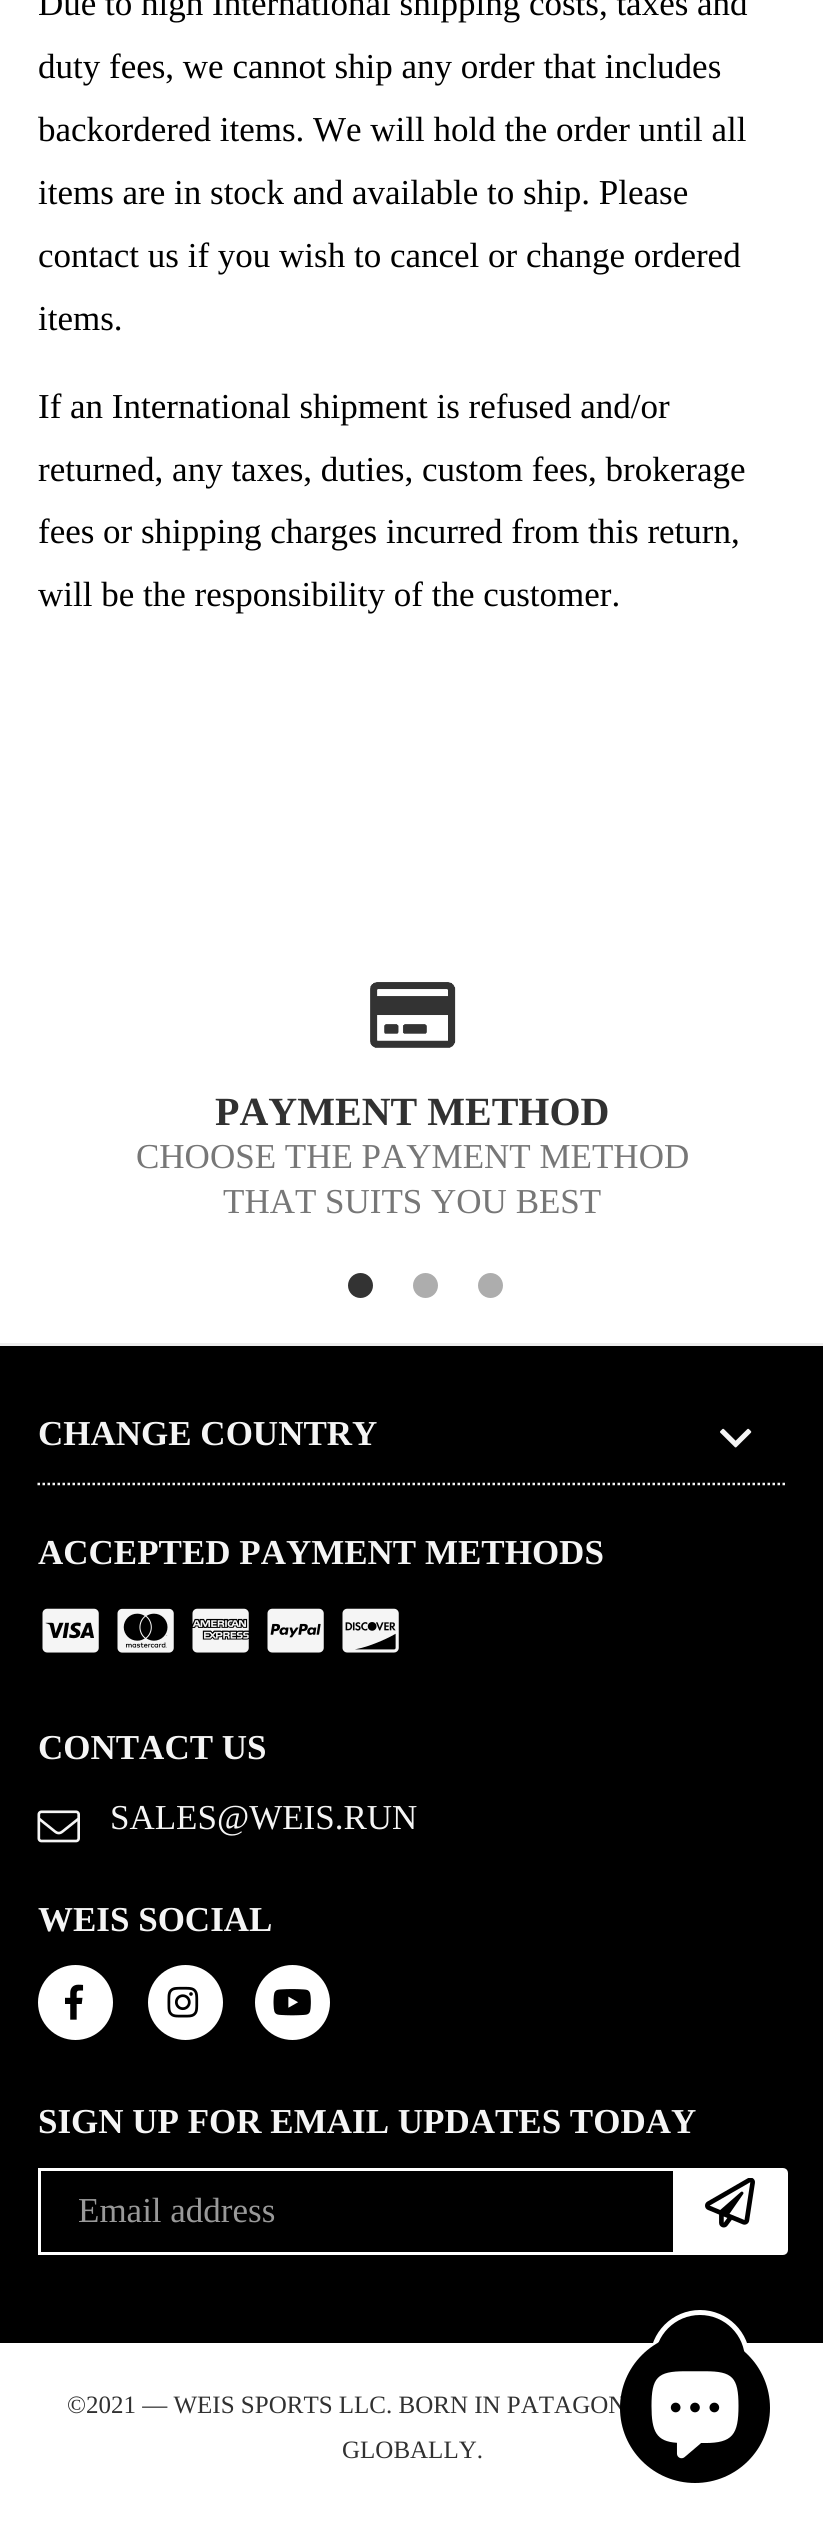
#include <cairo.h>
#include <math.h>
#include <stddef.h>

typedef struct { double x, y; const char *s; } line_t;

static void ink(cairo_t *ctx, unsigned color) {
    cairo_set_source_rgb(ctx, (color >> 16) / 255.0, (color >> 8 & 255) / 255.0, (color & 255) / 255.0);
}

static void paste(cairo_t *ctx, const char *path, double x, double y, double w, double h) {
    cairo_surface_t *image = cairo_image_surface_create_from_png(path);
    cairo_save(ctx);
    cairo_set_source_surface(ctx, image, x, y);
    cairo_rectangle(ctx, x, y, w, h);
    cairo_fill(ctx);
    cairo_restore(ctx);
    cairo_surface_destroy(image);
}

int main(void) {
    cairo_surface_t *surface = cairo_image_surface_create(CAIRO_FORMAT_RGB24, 823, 2534);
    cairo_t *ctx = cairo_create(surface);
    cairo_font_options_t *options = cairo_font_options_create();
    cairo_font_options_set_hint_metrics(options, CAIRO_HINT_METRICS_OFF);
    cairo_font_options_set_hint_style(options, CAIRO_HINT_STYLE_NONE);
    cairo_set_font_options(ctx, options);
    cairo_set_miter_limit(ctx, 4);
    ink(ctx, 0xFFFFFF);
    cairo_paint(ctx);
    cairo_select_font_face(ctx, "Liberation Serif", CAIRO_FONT_SLANT_NORMAL, CAIRO_FONT_WEIGHT_NORMAL);
    cairo_set_font_size(ctx, 35);
    ink(ctx, 0x000000);
    {
        static const line_t items[] = {
            {38, 15, "Due to high International shipping costs, taxes and"},
            {38, 78, "duty fees, we cannot ship any order that includes"},
            {38, 141, "backordered items. We will hold the order until all"},
            {38, 204, "items are in stock and available to ship. Please"},
            {38, 267, "contact us if you wish to cancel or change ordered"},
            {38, 330, "items."},
            {38, 418, "If an International shipment is refused and/or"},
            {38, 481, "returned, any taxes, duties, custom fees, brokerage"},
            {38, 543, "fees or shipping charges incurred from this return,"},
            {38, 606, "will be the responsibility of the customer."},
        };
        for (size_t i = 0; i < sizeof items / sizeof *items; i++) {
            cairo_move_to(ctx, items[i].x, items[i].y);
            cairo_show_text(ctx, items[i].s);
        }
    }
    paste(ctx, "media/1.png", 370, 982, 86, 66);
    cairo_select_font_face(ctx, "Liberation Serif", CAIRO_FONT_SLANT_NORMAL, CAIRO_FONT_WEIGHT_BOLD);
    cairo_set_font_size(ctx, 40);
    ink(ctx, 0x313131);
    cairo_move_to(ctx, 215, 1125);
    cairo_show_text(ctx, "PAYMENT METHOD");
    cairo_select_font_face(ctx, "Liberation Serif", CAIRO_FONT_SLANT_NORMAL, CAIRO_FONT_WEIGHT_NORMAL);
    cairo_set_font_size(ctx, 35);
    ink(ctx, 0x777777);
    cairo_move_to(ctx, 136, 1168);
    cairo_show_text(ctx, "CHOOSE THE PAYMENT METHOD");
    cairo_move_to(ctx, 223, 1213);
    cairo_show_text(ctx, "THAT SUITS YOU BEST");
    ink(ctx, 0x333333);
    cairo_new_path(ctx);
    cairo_arc(ctx, 360.5, 1285.5, 12.5, 0, 2 * M_PI);
    cairo_fill(ctx);
    ink(ctx, 0xADADAD);
    cairo_arc(ctx, 425.5, 1285.5, 12.5, 0, 2 * M_PI);
    cairo_fill(ctx);
    cairo_arc(ctx, 490.5, 1285.5, 12.5, 0, 2 * M_PI);
    cairo_fill(ctx);
    ink(ctx, 0x000000);
    cairo_rectangle(ctx, 0, 1346, 823, 997);
    cairo_fill(ctx);
    ink(ctx, 0xEEEEEE);
    cairo_rectangle(ctx, 0, 1343, 823, 3);
    cairo_fill(ctx);
    cairo_new_path(ctx);
    cairo_move_to(ctx, 37.5, 1484);
    cairo_line_to(ctx, 787.5, 1484);
    ink(ctx, 0xF5F5F5);
    cairo_set_line_width(ctx, 2.5);
    cairo_set_dash(ctx, (double[]){2.5, 2.5}, 2, 0);
    cairo_stroke(ctx);
    cairo_select_font_face(ctx, "Liberation Serif", CAIRO_FONT_SLANT_NORMAL, CAIRO_FONT_WEIGHT_BOLD);
    cairo_move_to(ctx, 38, 1445);
    cairo_show_text(ctx, "CHANGE COUNTRY");
    paste(ctx, "media/2.png", 720, 1428, 32, 20);
    cairo_move_to(ctx, 38, 1564);
    cairo_show_text(ctx, "ACCEPTED PAYMENT METHODS");
    paste(ctx, "media/3.png", 42, 1608, 57, 45);
    paste(ctx, "media/4.png", 117, 1608, 57, 45);
    paste(ctx, "media/5.png", 192, 1608, 57, 45);
    paste(ctx, "media/6.png", 267, 1608, 57, 45);
    paste(ctx, "media/7.png", 342, 1608, 57, 45);
    cairo_move_to(ctx, 38, 1759);
    cairo_show_text(ctx, "CONTACT US");
    paste(ctx, "media/8.png", 37, 1810, 43, 33);
    cairo_select_font_face(ctx, "Liberation Serif", CAIRO_FONT_SLANT_NORMAL, CAIRO_FONT_WEIGHT_NORMAL);
    cairo_move_to(ctx, 110, 1829);
    cairo_show_text(ctx, "SALES@WEIS.RUN");
    cairo_select_font_face(ctx, "Liberation Serif", CAIRO_FONT_SLANT_NORMAL, CAIRO_FONT_WEIGHT_BOLD);
    cairo_move_to(ctx, 38, 1931);
    cairo_show_text(ctx, "WEIS SOCIAL");
    ink(ctx, 0xFFFFFF);
    cairo_new_path(ctx);
    cairo_arc(ctx, 75.5, 2002.5, 37.5, 0, 2 * M_PI);
    cairo_fill(ctx);
    paste(ctx, "media/9.png", 65, 1984, 19, 36);
    cairo_arc(ctx, 185.5, 2002.5, 37.5, 0, 2 * M_PI);
    cairo_fill(ctx);
    paste(ctx, "media/10.png", 167, 1986, 32, 32);
    cairo_arc(ctx, 292.5, 2002.5, 37.5, 0, 2 * M_PI);
    cairo_fill(ctx);
    paste(ctx, "media/11.png", 273, 1989, 38, 27);
    ink(ctx, 0xF5F5F5);
    cairo_move_to(ctx, 38, 2133);
    cairo_show_text(ctx, "SIGN UP FOR EMAIL UPDATES TODAY");
    cairo_rectangle(ctx, 39.5, 2169.5, 739, 84);
    ink(ctx, 0xFFFFFF);
    cairo_set_line_width(ctx, 3);
    cairo_set_dash(ctx, NULL, 0, 0);
    cairo_stroke(ctx);
    cairo_select_font_face(ctx, "Liberation Serif", CAIRO_FONT_SLANT_NORMAL, CAIRO_FONT_WEIGHT_NORMAL);
    ink(ctx, 0x999999);
    cairo_move_to(ctx, 78, 2222);
    cairo_show_text(ctx, "Email address");
    ink(ctx, 0xFFFFFF);
    cairo_new_path(ctx);
    cairo_move_to(ctx, 674.5, 2169.5);
    cairo_line_to(ctx, 783, 2169.5);
    cairo_curve_to(ctx, 785, 2169.5, 786.5, 2171, 786.5, 2173);
    cairo_line_to(ctx, 786.5, 2250);
    cairo_curve_to(ctx, 786.5, 2252, 785, 2253.5, 783, 2253.5);
    cairo_line_to(ctx, 674.5, 2253.5);
    cairo_close_path(ctx);
    cairo_fill_preserve(ctx);
    cairo_stroke(ctx);
    paste(ctx, "media/12.png", 705, 2178, 50, 50);
    cairo_set_font_size(ctx, 25);
    ink(ctx, 0x313131);
    cairo_move_to(ctx, 67, 2413);
    cairo_show_text(ctx, "©2021 — WEIS SPORTS LLC. BORN IN PATAGON");
    cairo_move_to(ctx, 342, 2458);
    cairo_show_text(ctx, "GLOBALLY.");
    ink(ctx, 0x000000);
    cairo_new_path(ctx);
    cairo_arc(ctx, 700, 2360, 47.5, 0, 2 * M_PI);
    cairo_fill_preserve(ctx);
    ink(ctx, 0xFFFFFF);
    cairo_set_line_width(ctx, 5);
    cairo_stroke(ctx);
    ink(ctx, 0x000000);
    cairo_arc(ctx, 695, 2408, 75, 0, 2 * M_PI);
    cairo_fill(ctx);
    paste(ctx, "media/13.png", 651, 2371, 88, 88);
    cairo_surface_write_to_png(surface, "image.png");
    cairo_font_options_destroy(options);
    cairo_destroy(ctx);
    cairo_surface_destroy(surface);
    return 0;
}
